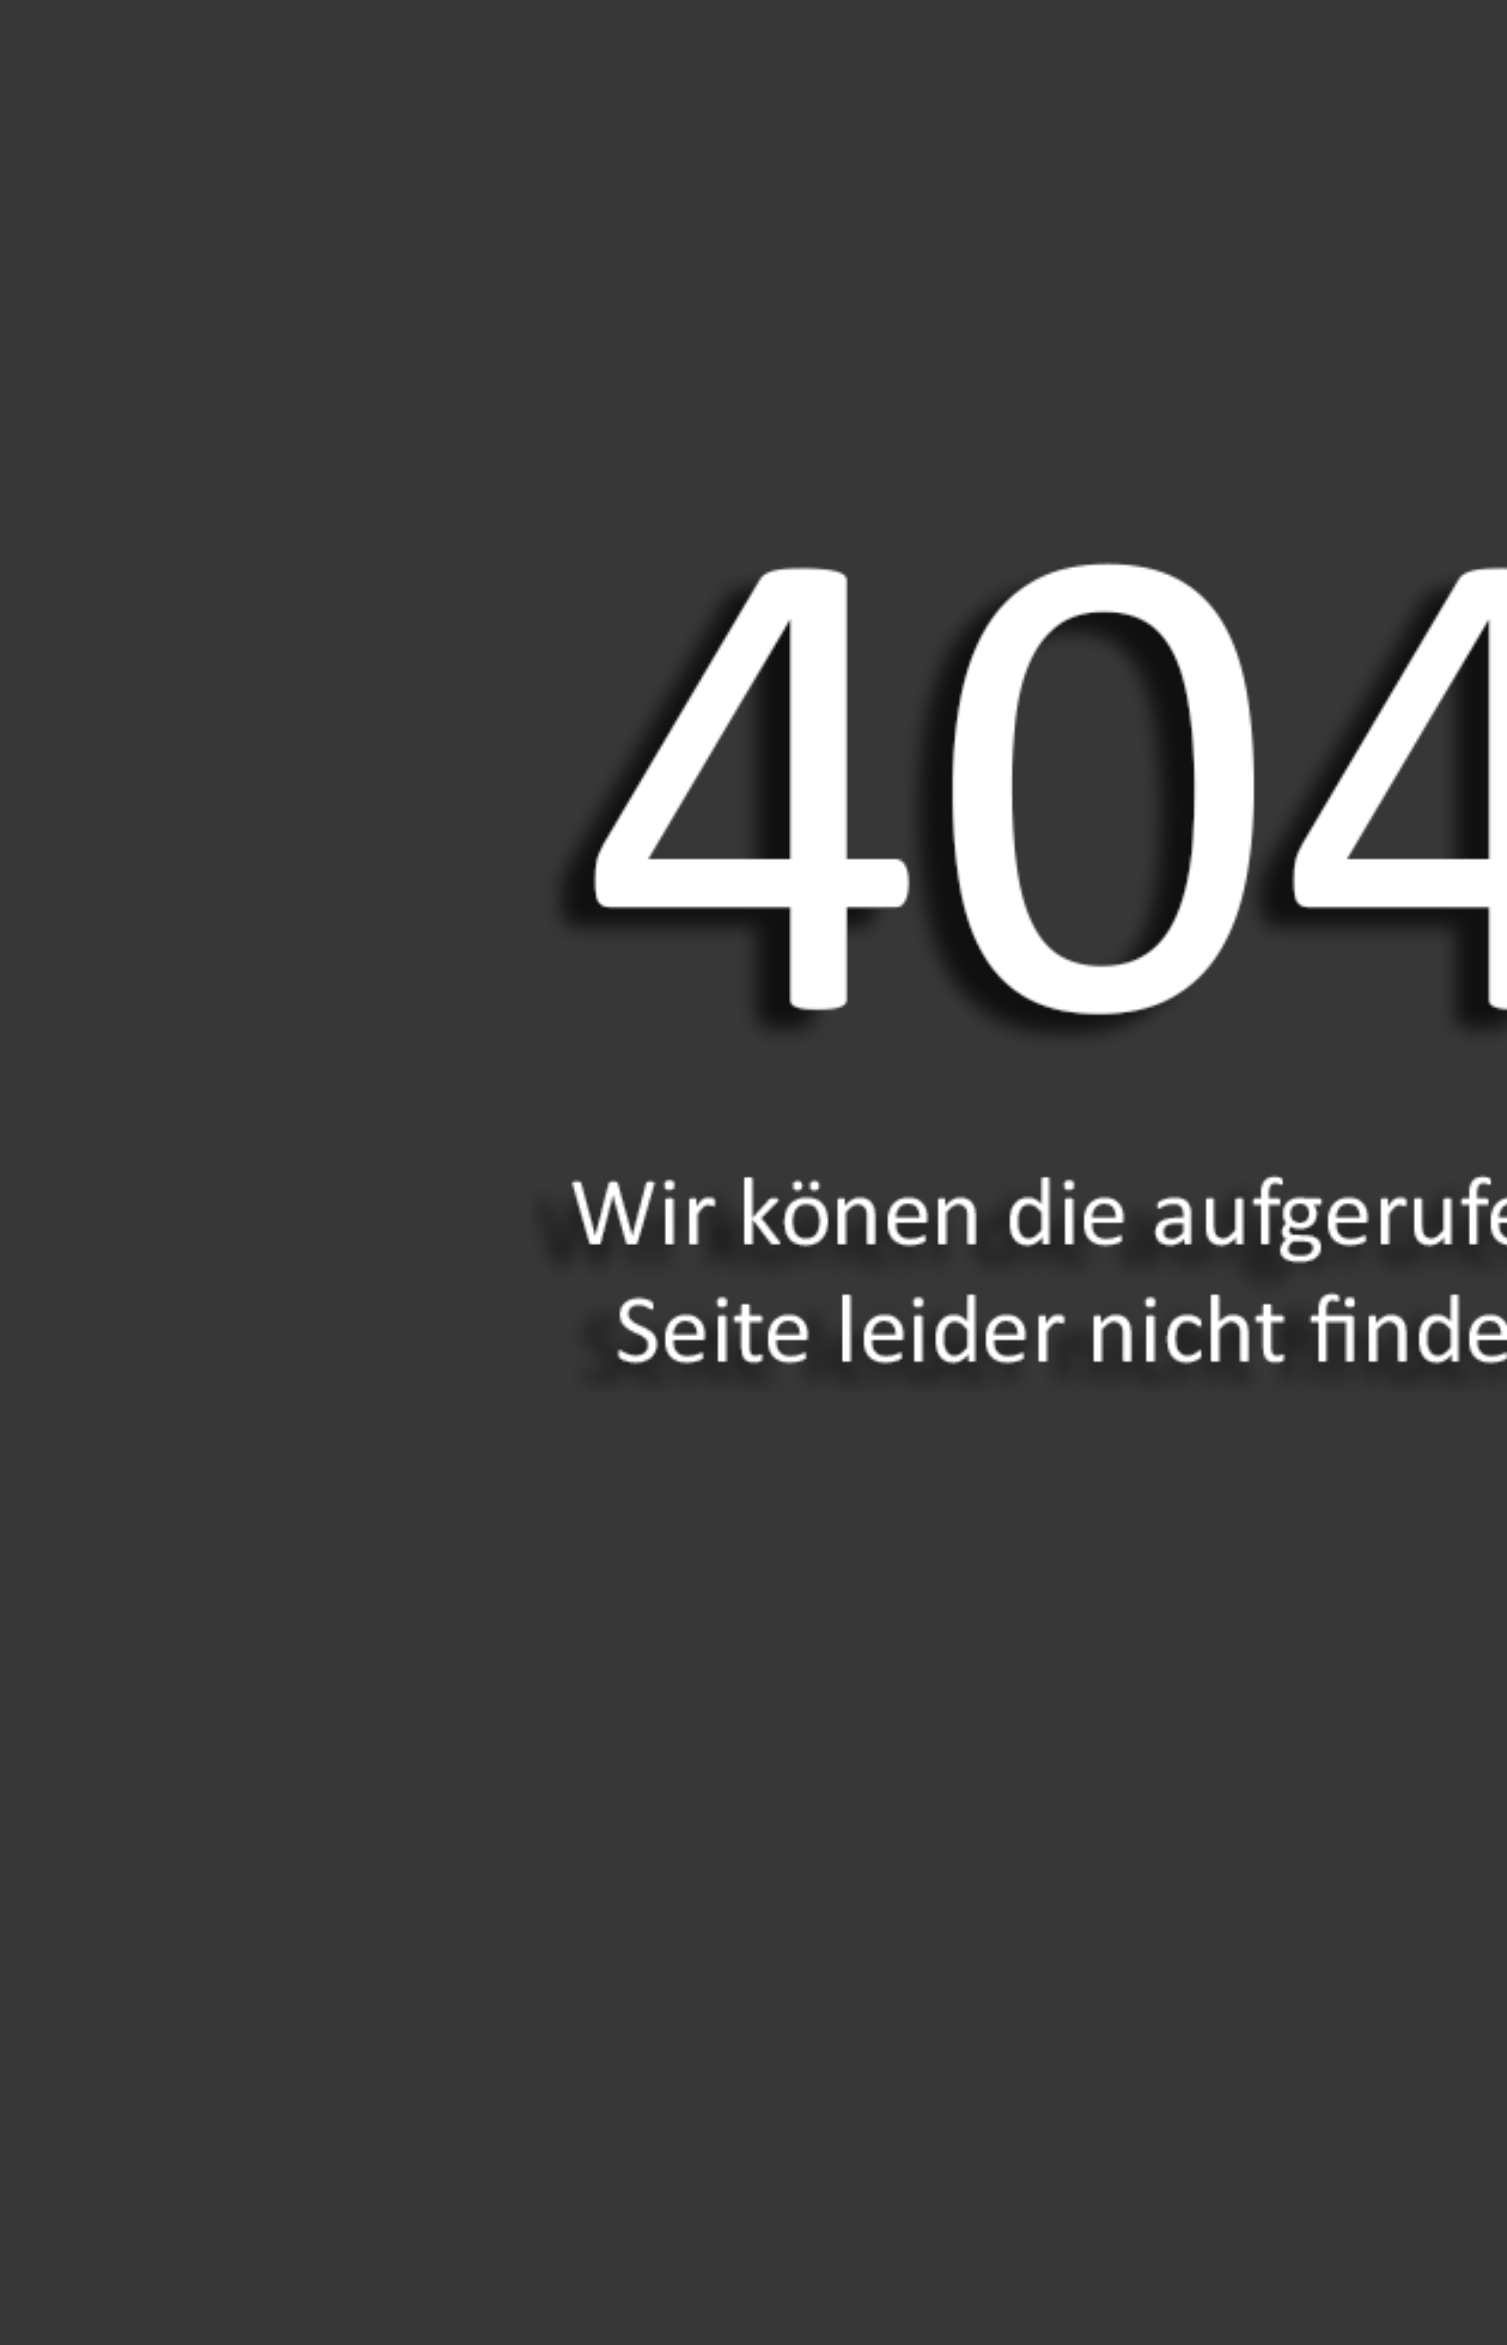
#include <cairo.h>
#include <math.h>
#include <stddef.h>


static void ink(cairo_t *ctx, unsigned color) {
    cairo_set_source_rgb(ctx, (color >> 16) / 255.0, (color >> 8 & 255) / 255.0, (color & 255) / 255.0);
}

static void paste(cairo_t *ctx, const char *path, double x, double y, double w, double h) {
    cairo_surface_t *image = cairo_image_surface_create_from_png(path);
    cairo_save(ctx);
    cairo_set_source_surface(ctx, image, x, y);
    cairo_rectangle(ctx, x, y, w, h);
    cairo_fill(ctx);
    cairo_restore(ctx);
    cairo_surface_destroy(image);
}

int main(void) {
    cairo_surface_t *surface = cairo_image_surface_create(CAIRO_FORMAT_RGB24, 1507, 2345);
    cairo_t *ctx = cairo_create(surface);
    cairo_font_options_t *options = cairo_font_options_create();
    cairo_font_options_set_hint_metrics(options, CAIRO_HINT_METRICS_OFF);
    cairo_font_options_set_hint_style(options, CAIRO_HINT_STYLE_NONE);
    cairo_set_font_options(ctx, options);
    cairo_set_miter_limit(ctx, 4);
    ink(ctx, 0x373737);
    cairo_paint(ctx);
    paste(ctx, "media/1.png", 531, 561, 976, 831);
    cairo_surface_write_to_png(surface, "image.png");
    cairo_font_options_destroy(options);
    cairo_destroy(ctx);
    cairo_surface_destroy(surface);
    return 0;
}
